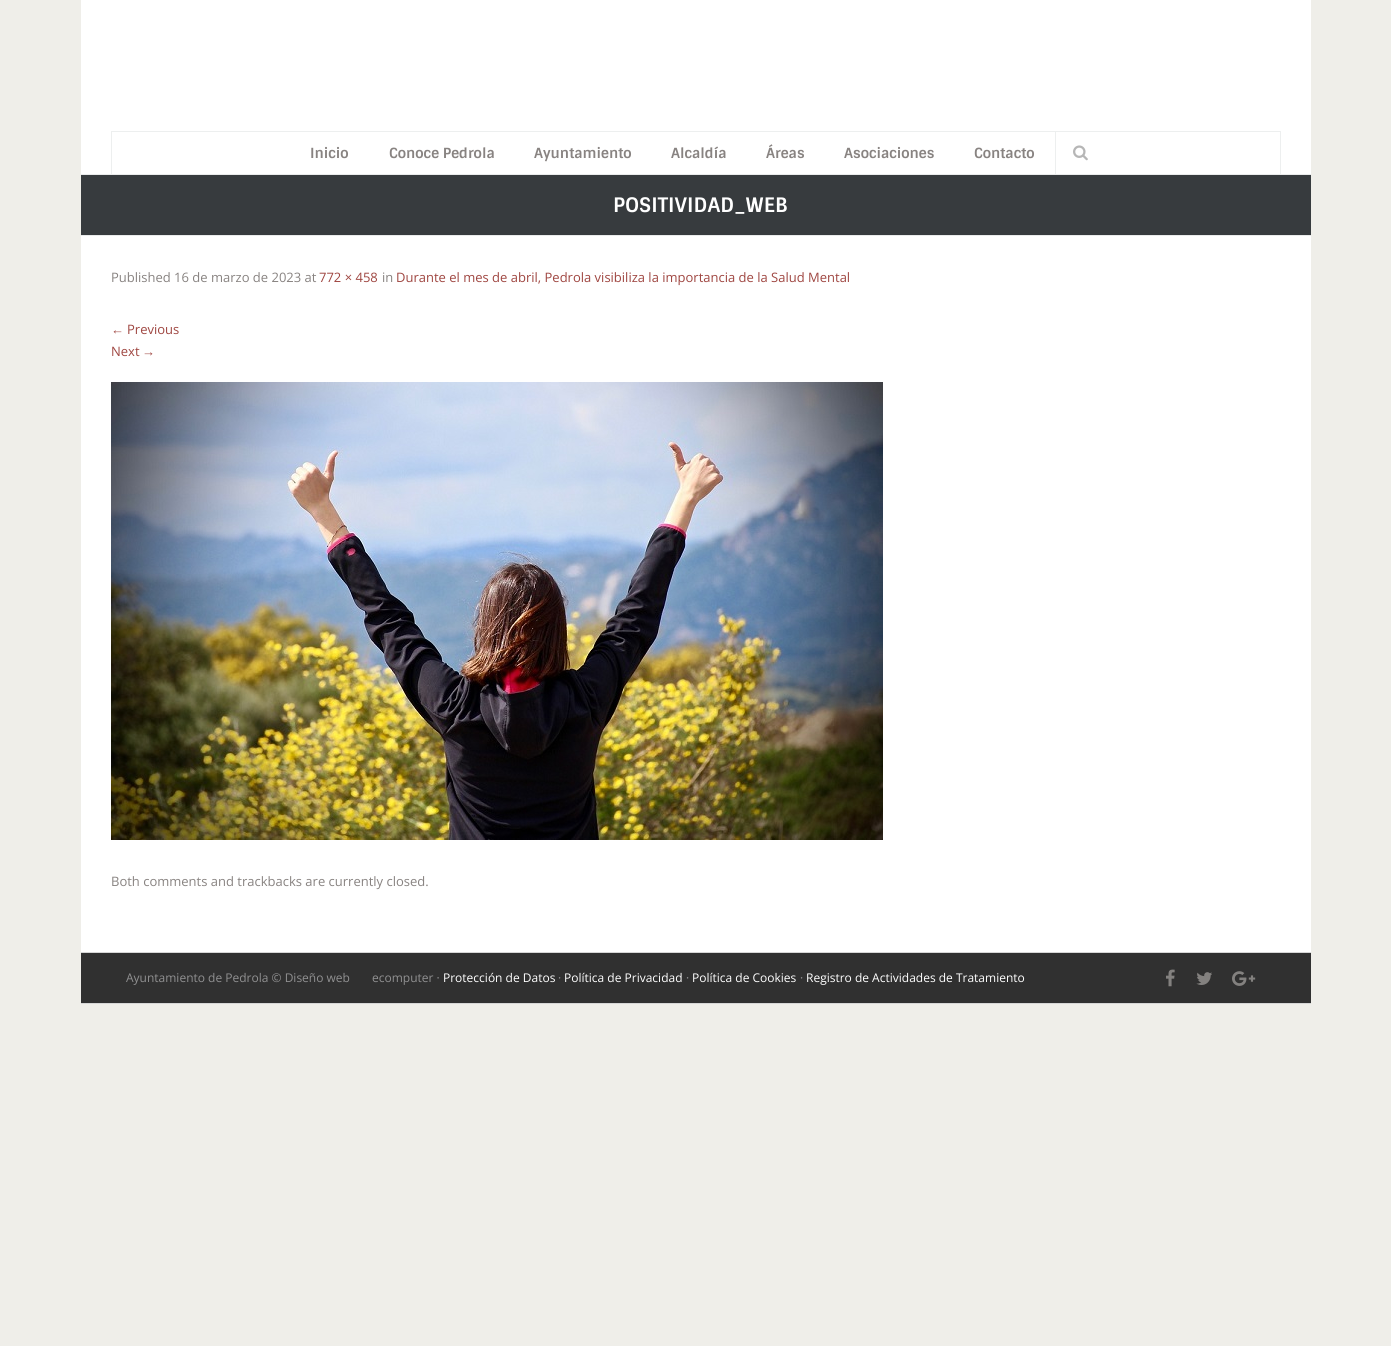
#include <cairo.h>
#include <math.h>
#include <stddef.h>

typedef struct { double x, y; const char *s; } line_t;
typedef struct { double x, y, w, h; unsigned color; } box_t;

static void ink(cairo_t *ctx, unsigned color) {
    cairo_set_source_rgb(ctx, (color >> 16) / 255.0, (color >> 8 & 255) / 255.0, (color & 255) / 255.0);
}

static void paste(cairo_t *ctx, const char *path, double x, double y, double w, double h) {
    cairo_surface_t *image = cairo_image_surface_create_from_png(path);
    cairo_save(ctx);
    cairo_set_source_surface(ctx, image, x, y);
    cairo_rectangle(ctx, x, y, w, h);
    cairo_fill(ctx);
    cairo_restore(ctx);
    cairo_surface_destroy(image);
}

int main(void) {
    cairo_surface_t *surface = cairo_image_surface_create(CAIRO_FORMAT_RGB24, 1391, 1346);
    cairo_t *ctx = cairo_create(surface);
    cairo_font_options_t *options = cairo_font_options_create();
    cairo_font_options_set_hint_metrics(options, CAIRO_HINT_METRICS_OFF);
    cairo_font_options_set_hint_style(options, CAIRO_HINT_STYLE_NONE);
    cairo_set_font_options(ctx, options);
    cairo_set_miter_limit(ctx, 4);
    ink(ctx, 0xEFEEE9);
    cairo_paint(ctx);
    {
        static const box_t items[] = {
            {81, 0, 1230, 174, 0xFFFFFF},
            {111, 131, 1170, 1, 0xEDEFEF},
            {1280, 131, 1, 43, 0xEDEFEF},
            {111, 131, 1, 43, 0xEDEFEF},
        };
        for (size_t i = 0; i < sizeof items / sizeof *items; i++) {
            ink(ctx, items[i].color);
            cairo_rectangle(ctx, items[i].x, items[i].y, items[i].w, items[i].h);
            cairo_fill(ctx);
        }
    }
    cairo_select_font_face(ctx, "Sintony", CAIRO_FONT_SLANT_NORMAL, CAIRO_FONT_WEIGHT_BOLD);
    cairo_set_font_size(ctx, 14);
    ink(ctx, 0x888381);
    {
        static const line_t items[] = {
            {310, 158, "Inicio"},
            {389, 158, "Conoce Pedrola"},
            {534, 158, "Ayuntamiento"},
            {671, 158, "Alcaldía"},
            {766, 158, "Áreas"},
            {844, 158, "Asociaciones"},
            {974, 158, "Contacto"},
        };
        for (size_t i = 0; i < sizeof items / sizeof *items; i++) {
            cairo_move_to(ctx, items[i].x, items[i].y);
            cairo_show_text(ctx, items[i].s);
        }
    }
    ink(ctx, 0xEDEFEF);
    cairo_rectangle(ctx, 1055, 132, 1, 42);
    cairo_fill(ctx);
    paste(ctx, "media/1.png", 1073, 145, 15, 16);
    {
        static const box_t items[] = {
            {81, 236, 1230, 716, 0xFFFFFF},
            {81, 174, 1230, 1, 0xEAEBEB},
            {81, 235, 1230, 1, 0xEAEBEB},
            {81, 175, 1230, 60, 0x373B3E},
        };
        for (size_t i = 0; i < sizeof items / sizeof *items; i++) {
            ink(ctx, items[i].color);
            cairo_rectangle(ctx, items[i].x, items[i].y, items[i].w, items[i].h);
            cairo_fill(ctx);
        }
    }
    cairo_set_font_size(ctx, 20);
    ink(ctx, 0xFFFFFF);
    cairo_move_to(ctx, 613, 212);
    cairo_show_text(ctx, "POSITIVIDAD_WEB");
    cairo_select_font_face(ctx, "Open Sans", CAIRO_FONT_SLANT_NORMAL, CAIRO_FONT_WEIGHT_NORMAL);
    cairo_set_font_size(ctx, 13);
    ink(ctx, 0x888381);
    cairo_move_to(ctx, 111, 282);
    cairo_show_text(ctx, "Published 16 de marzo de 2023 at");
    ink(ctx, 0x9F4641);
    cairo_move_to(ctx, 319, 282);
    cairo_show_text(ctx, "772 × 458");
    ink(ctx, 0x888381);
    cairo_move_to(ctx, 382, 282);
    cairo_show_text(ctx, "in");
    ink(ctx, 0x9F4641);
    cairo_move_to(ctx, 396, 282);
    cairo_show_text(ctx, "Durante el mes de abril, Pedrola visibiliza la importancia de la Salud Mental");
    cairo_select_font_face(ctx, "Liberation Serif", CAIRO_FONT_SLANT_NORMAL, CAIRO_FONT_WEIGHT_NORMAL);
    cairo_move_to(ctx, 111, 334);
    cairo_show_text(ctx, "←");
    cairo_select_font_face(ctx, "Open Sans", CAIRO_FONT_SLANT_NORMAL, CAIRO_FONT_WEIGHT_NORMAL);
    cairo_move_to(ctx, 127, 334);
    cairo_show_text(ctx, "Previous");
    cairo_move_to(ctx, 111, 356);
    cairo_show_text(ctx, "Next");
    cairo_select_font_face(ctx, "Liberation Serif", CAIRO_FONT_SLANT_NORMAL, CAIRO_FONT_WEIGHT_NORMAL);
    cairo_move_to(ctx, 142, 356);
    cairo_show_text(ctx, "→");
    paste(ctx, "media/2.png", 111, 382, 772, 458);
    cairo_select_font_face(ctx, "Open Sans", CAIRO_FONT_SLANT_NORMAL, CAIRO_FONT_WEIGHT_NORMAL);
    ink(ctx, 0x888381);
    cairo_move_to(ctx, 111, 886);
    cairo_show_text(ctx, "Both comments and trackbacks are currently closed.");
    {
        static const box_t items[] = {
            {81, 953, 1230, 50, 0x303030},
            {81, 952, 1230, 1, 0xD6D6D6},
            {81, 1003, 1230, 1, 0xD6D6D6},
        };
        for (size_t i = 0; i < sizeof items / sizeof *items; i++) {
            ink(ctx, items[i].color);
            cairo_rectangle(ctx, items[i].x, items[i].y, items[i].w, items[i].h);
            cairo_fill(ctx);
        }
    }
    cairo_set_font_size(ctx, 12);
    ink(ctx, 0x909091);
    cairo_move_to(ctx, 126, 982);
    cairo_show_text(ctx, "Ayuntamiento de Pedrola © Diseño web");
    cairo_move_to(ctx, 372, 982);
    cairo_show_text(ctx, "ecomputer ·");
    ink(ctx, 0xFFFFFF);
    cairo_move_to(ctx, 443, 982);
    cairo_show_text(ctx, "Protección de Datos");
    ink(ctx, 0x909091);
    cairo_move_to(ctx, 558, 982);
    cairo_show_text(ctx, "·");
    ink(ctx, 0xFFFFFF);
    cairo_move_to(ctx, 564, 982);
    cairo_show_text(ctx, "Política de Privacidad");
    ink(ctx, 0x909091);
    cairo_move_to(ctx, 686, 982);
    cairo_show_text(ctx, "·");
    ink(ctx, 0xFFFFFF);
    cairo_move_to(ctx, 692, 982);
    cairo_show_text(ctx, "Política de Cookies");
    ink(ctx, 0x909091);
    cairo_move_to(ctx, 800, 982);
    cairo_show_text(ctx, "·");
    ink(ctx, 0xFFFFFF);
    cairo_move_to(ctx, 806, 982);
    cairo_show_text(ctx, "Registro de Actividades de Tratamiento");
    paste(ctx, "media/3.png", 1166, 969, 9, 18);
    paste(ctx, "media/4.png", 1196, 972, 16, 13);
    paste(ctx, "media/5.png", 1232, 971, 24, 15);
    cairo_surface_write_to_png(surface, "image.png");
    cairo_font_options_destroy(options);
    cairo_destroy(ctx);
    cairo_surface_destroy(surface);
    return 0;
}
